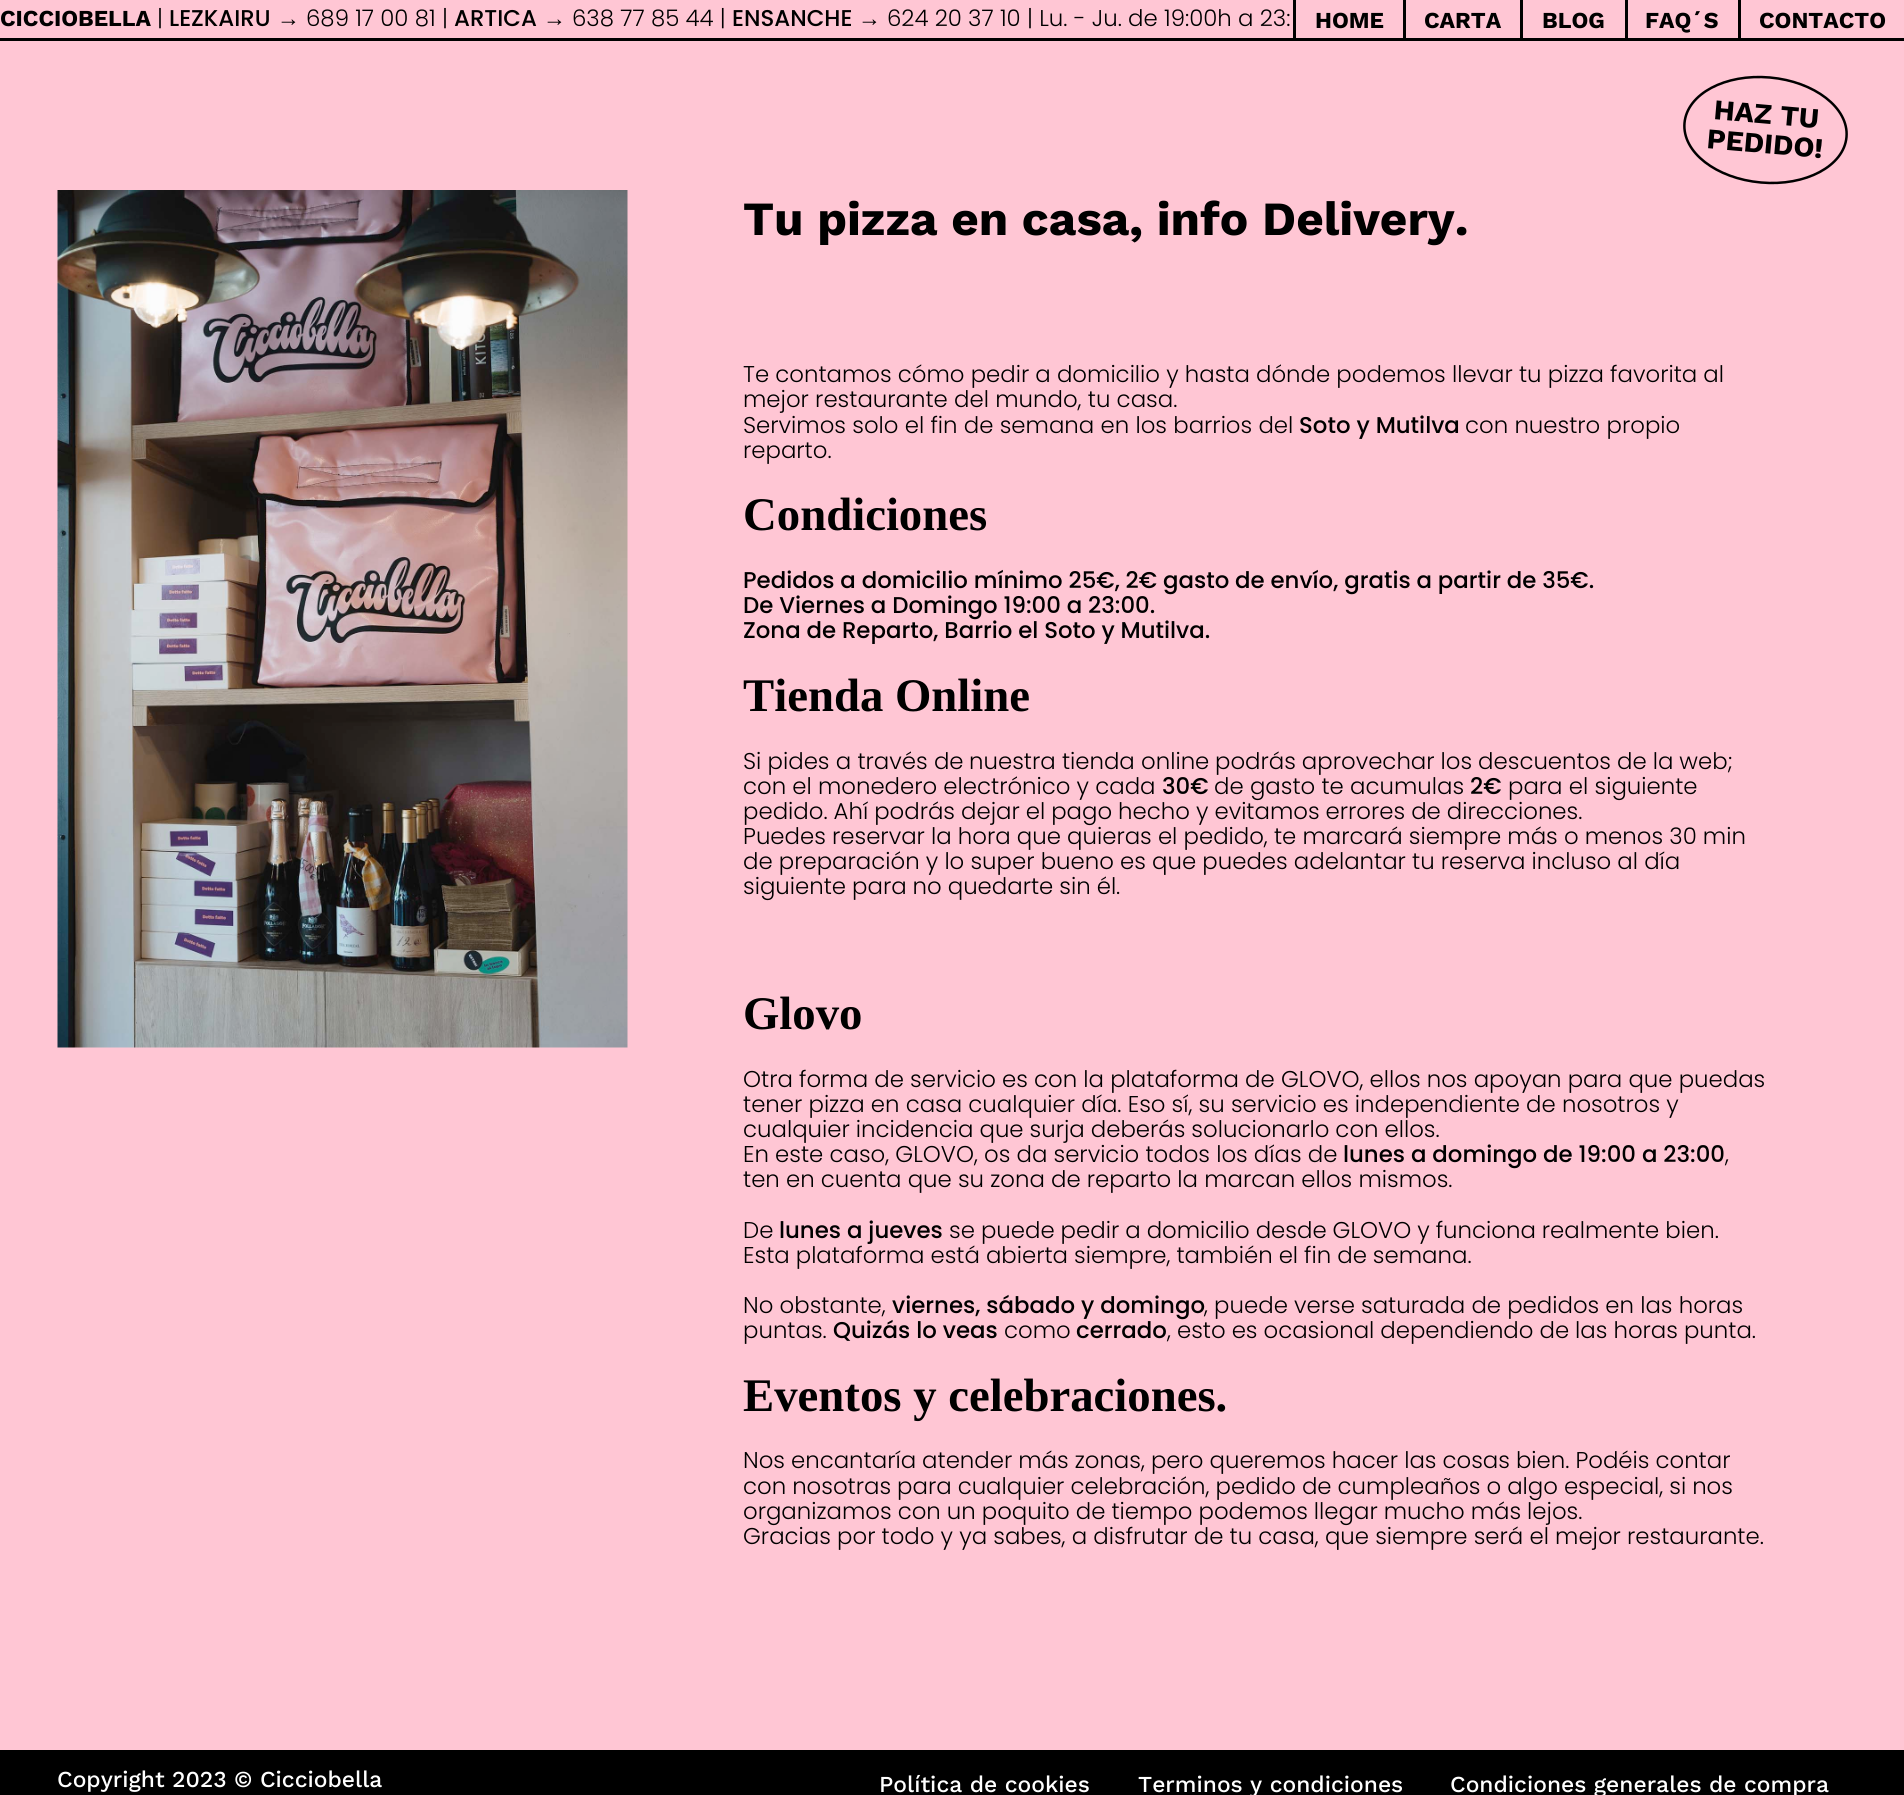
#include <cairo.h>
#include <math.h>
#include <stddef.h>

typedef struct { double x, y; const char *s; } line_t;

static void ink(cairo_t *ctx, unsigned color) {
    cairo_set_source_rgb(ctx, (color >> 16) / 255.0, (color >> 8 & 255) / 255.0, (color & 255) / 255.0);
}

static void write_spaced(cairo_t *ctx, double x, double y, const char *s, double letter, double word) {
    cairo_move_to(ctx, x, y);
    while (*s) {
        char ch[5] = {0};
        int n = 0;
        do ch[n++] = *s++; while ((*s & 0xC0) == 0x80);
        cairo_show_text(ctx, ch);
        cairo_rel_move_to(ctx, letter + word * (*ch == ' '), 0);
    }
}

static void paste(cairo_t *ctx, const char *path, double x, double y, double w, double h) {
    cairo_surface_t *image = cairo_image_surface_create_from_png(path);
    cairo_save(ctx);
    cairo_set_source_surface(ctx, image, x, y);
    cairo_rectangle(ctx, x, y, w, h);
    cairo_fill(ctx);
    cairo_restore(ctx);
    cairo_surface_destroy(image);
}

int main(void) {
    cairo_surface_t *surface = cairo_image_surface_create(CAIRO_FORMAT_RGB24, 1904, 1795);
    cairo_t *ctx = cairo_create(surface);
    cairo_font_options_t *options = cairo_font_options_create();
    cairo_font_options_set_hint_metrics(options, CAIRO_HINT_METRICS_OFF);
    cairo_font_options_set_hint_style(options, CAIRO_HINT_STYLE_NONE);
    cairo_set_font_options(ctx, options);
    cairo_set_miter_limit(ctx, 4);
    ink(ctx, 0xFFC6D4);
    cairo_paint(ctx);
    cairo_select_font_face(ctx, "Work Sans", CAIRO_FONT_SLANT_NORMAL, CAIRO_FONT_WEIGHT_BOLD);
    cairo_set_font_size(ctx, 22.85);
    ink(ctx, 0x000000);
    cairo_move_to(ctx, 0, 26);
    cairo_show_text(ctx, "CICCIOBELLA");
    cairo_select_font_face(ctx, "Poppins Light", CAIRO_FONT_SLANT_NORMAL, CAIRO_FONT_WEIGHT_NORMAL);
    cairo_move_to(ctx, 157, 26);
    cairo_show_text(ctx, "|");
    cairo_select_font_face(ctx, "Poppins Medium", CAIRO_FONT_SLANT_NORMAL, CAIRO_FONT_WEIGHT_NORMAL);
    cairo_move_to(ctx, 169, 26);
    cairo_show_text(ctx, "LEZKAIRU");
    cairo_select_font_face(ctx, "Liberation Sans", CAIRO_FONT_SLANT_NORMAL, CAIRO_FONT_WEIGHT_NORMAL);
    cairo_move_to(ctx, 277, 26);
    cairo_show_text(ctx, "→");
    cairo_select_font_face(ctx, "Poppins Light", CAIRO_FONT_SLANT_NORMAL, CAIRO_FONT_WEIGHT_NORMAL);
    cairo_move_to(ctx, 306, 26);
    cairo_show_text(ctx, "689 17 00 81 |");
    cairo_select_font_face(ctx, "Poppins Medium", CAIRO_FONT_SLANT_NORMAL, CAIRO_FONT_WEIGHT_NORMAL);
    cairo_move_to(ctx, 454, 26);
    cairo_show_text(ctx, "ARTICA");
    cairo_select_font_face(ctx, "Liberation Sans", CAIRO_FONT_SLANT_NORMAL, CAIRO_FONT_WEIGHT_NORMAL);
    cairo_move_to(ctx, 543, 26);
    cairo_show_text(ctx, "→");
    cairo_select_font_face(ctx, "Poppins Light", CAIRO_FONT_SLANT_NORMAL, CAIRO_FONT_WEIGHT_NORMAL);
    cairo_move_to(ctx, 572, 26);
    cairo_show_text(ctx, "638 77 85 44 |");
    cairo_select_font_face(ctx, "Poppins Medium", CAIRO_FONT_SLANT_NORMAL, CAIRO_FONT_WEIGHT_NORMAL);
    cairo_move_to(ctx, 732, 26);
    cairo_show_text(ctx, "ENSANCHE");
    cairo_select_font_face(ctx, "Liberation Sans", CAIRO_FONT_SLANT_NORMAL, CAIRO_FONT_WEIGHT_NORMAL);
    cairo_move_to(ctx, 858, 26);
    cairo_show_text(ctx, "→");
    cairo_select_font_face(ctx, "Poppins Light", CAIRO_FONT_SLANT_NORMAL, CAIRO_FONT_WEIGHT_NORMAL);
    cairo_move_to(ctx, 887, 26);
    cairo_show_text(ctx, "624 20 37 10 | Lu. - Ju. de 19:00h a 23:");
    cairo_rectangle(ctx, 0, 38, 1904, 3);
    cairo_fill(ctx);
    cairo_rectangle(ctx, 1293, 0, 3, 38);
    cairo_fill(ctx);
    cairo_select_font_face(ctx, "Work Sans", CAIRO_FONT_SLANT_NORMAL, CAIRO_FONT_WEIGHT_BOLD);
    cairo_move_to(ctx, 1315, 28);
    cairo_show_text(ctx, "HOME");
    cairo_rectangle(ctx, 1403, 0, 3, 38);
    cairo_fill(ctx);
    cairo_move_to(ctx, 1424, 28);
    cairo_show_text(ctx, "CARTA");
    cairo_rectangle(ctx, 1520, 0, 3, 38);
    cairo_fill(ctx);
    cairo_move_to(ctx, 1542, 28);
    cairo_show_text(ctx, "BLOG");
    cairo_rectangle(ctx, 1625, 0, 3, 38);
    cairo_fill(ctx);
    cairo_move_to(ctx, 1645, 28);
    cairo_show_text(ctx, "FAQ´S");
    cairo_rectangle(ctx, 1738, 0, 3, 38);
    cairo_fill(ctx);
    cairo_move_to(ctx, 1759, 28);
    cairo_show_text(ctx, "CONTACTO");
    cairo_new_path(ctx);
    cairo_move_to(ctx, 1770, 77.5);
    cairo_curve_to(ctx, 1814.5, 81.5, 1849, 108, 1846.5, 137);
    cairo_curve_to(ctx, 1844, 166, 1805.5, 186.5, 1761, 182.5);
    cairo_curve_to(ctx, 1716, 178.5, 1682, 152, 1684.5, 123);
    cairo_curve_to(ctx, 1687, 94, 1725, 73.5, 1770, 77.5);
    cairo_close_path(ctx);
    cairo_set_line_width(ctx, 2.5);
    cairo_stroke(ctx);
    cairo_set_font_size(ctx, 28.5);
    cairo_save(ctx);
    cairo_translate(ctx, 1713, 119);
    cairo_rotate(ctx, 5 * M_PI / 180);
    cairo_move_to(ctx, 0, 0);
    cairo_show_text(ctx, "HAZ TU");
    cairo_restore(ctx);
    cairo_save(ctx);
    cairo_translate(ctx, 1706, 148);
    cairo_rotate(ctx, 5 * M_PI / 180);
    cairo_move_to(ctx, 0, 0);
    cairo_show_text(ctx, "PEDIDO!");
    cairo_restore(ctx);
    paste(ctx, "media/1.png", 57, 190, 571, 858);
    cairo_set_font_size(ctx, 47.6);
    cairo_move_to(ctx, 743, 235);
    cairo_show_text(ctx, "Tu pizza en casa, info Delivery.");
    cairo_select_font_face(ctx, "Poppins Light", CAIRO_FONT_SLANT_NORMAL, CAIRO_FONT_WEIGHT_NORMAL);
    cairo_set_font_size(ctx, 22.85);
    write_spaced(ctx, 743, 382, "Te contamos cómo pedir a domicilio y hasta dónde podemos llevar tu pizza favorita al", 0, -0.1);
    cairo_move_to(ctx, 743, 407);
    cairo_show_text(ctx, "mejor restaurante del mundo, tu casa.");
    cairo_move_to(ctx, 743, 433);
    cairo_show_text(ctx, "Servimos solo el fin de semana en los barrios del");
    cairo_select_font_face(ctx, "Poppins Medium", CAIRO_FONT_SLANT_NORMAL, CAIRO_FONT_WEIGHT_NORMAL);
    cairo_move_to(ctx, 1299, 433);
    cairo_show_text(ctx, "Soto y Mutilva");
    cairo_select_font_face(ctx, "Poppins Light", CAIRO_FONT_SLANT_NORMAL, CAIRO_FONT_WEIGHT_NORMAL);
    cairo_move_to(ctx, 1465, 433);
    cairo_show_text(ctx, "con nuestro propio");
    cairo_move_to(ctx, 743, 458);
    cairo_show_text(ctx, "reparto.");
    cairo_select_font_face(ctx, "Liberation Serif", CAIRO_FONT_SLANT_NORMAL, CAIRO_FONT_WEIGHT_BOLD);
    cairo_set_font_size(ctx, 46.75);
    cairo_move_to(ctx, 743, 530);
    cairo_show_text(ctx, "Condiciones");
    cairo_select_font_face(ctx, "Poppins Medium", CAIRO_FONT_SLANT_NORMAL, CAIRO_FONT_WEIGHT_NORMAL);
    cairo_set_font_size(ctx, 22.85);
    {
        static const line_t items[] = {
            {743, 588, "Pedidos a domicilio mínimo 25€, 2€ gasto de envío, gratis a partir de 35€."},
            {743, 613, "De Viernes a Domingo 19:00 a 23:00."},
            {743, 638, "Zona de Reparto, Barrio el Soto y Mutilva."},
        };
        for (size_t i = 0; i < sizeof items / sizeof *items; i++) {
            write_spaced(ctx, items[i].x, items[i].y, items[i].s, 0, -0.1);
        }
    }
    cairo_select_font_face(ctx, "Liberation Serif", CAIRO_FONT_SLANT_NORMAL, CAIRO_FONT_WEIGHT_BOLD);
    cairo_set_font_size(ctx, 46.75);
    cairo_move_to(ctx, 743, 711);
    cairo_show_text(ctx, "Tienda Online");
    cairo_select_font_face(ctx, "Poppins Light", CAIRO_FONT_SLANT_NORMAL, CAIRO_FONT_WEIGHT_NORMAL);
    cairo_set_font_size(ctx, 22.85);
    cairo_move_to(ctx, 743, 769);
    cairo_show_text(ctx, "Si pides a través de");
    cairo_move_to(ctx, 969, 769);
    cairo_show_text(ctx, "nuestra tienda online");
    write_spaced(ctx, 1215, 769, "podrás aprovechar los descuentos de la web;", 0, -0.25);
    write_spaced(ctx, 743, 794, "con el monedero electrónico y cada", 0, -0.1);
    cairo_select_font_face(ctx, "Poppins Medium", CAIRO_FONT_SLANT_NORMAL, CAIRO_FONT_WEIGHT_NORMAL);
    cairo_move_to(ctx, 1162, 794);
    cairo_show_text(ctx, "30€");
    cairo_select_font_face(ctx, "Poppins Light", CAIRO_FONT_SLANT_NORMAL, CAIRO_FONT_WEIGHT_NORMAL);
    cairo_move_to(ctx, 1214, 794);
    cairo_show_text(ctx, "de gasto te acumulas");
    cairo_select_font_face(ctx, "Poppins Medium", CAIRO_FONT_SLANT_NORMAL, CAIRO_FONT_WEIGHT_NORMAL);
    cairo_move_to(ctx, 1470, 794);
    cairo_show_text(ctx, "2€");
    cairo_select_font_face(ctx, "Poppins Light", CAIRO_FONT_SLANT_NORMAL, CAIRO_FONT_WEIGHT_NORMAL);
    cairo_move_to(ctx, 1508, 794);
    cairo_show_text(ctx, "para el siguiente");
    write_spaced(ctx, 743, 819, "pedido. Ahí podrás dejar el pago hecho y evitamos errores de direcciones.", 0, -0.25);
    write_spaced(ctx, 743, 844, "Puedes reservar la hora que quieras el pedido, te marcará siempre más o menos 30 min", 0, -0.1);
    write_spaced(ctx, 743, 869, "de preparación y lo super bueno es que puedes adelantar tu reserva incluso al día", 0, -0.1);
    write_spaced(ctx, 743, 894, "siguiente para no quedarte sin él.", 0, -0.25);
    cairo_select_font_face(ctx, "Liberation Serif", CAIRO_FONT_SLANT_NORMAL, CAIRO_FONT_WEIGHT_BOLD);
    cairo_set_font_size(ctx, 46.75);
    cairo_move_to(ctx, 743, 1029);
    cairo_show_text(ctx, "Glovo");
    cairo_select_font_face(ctx, "Poppins Light", CAIRO_FONT_SLANT_NORMAL, CAIRO_FONT_WEIGHT_NORMAL);
    cairo_set_font_size(ctx, 22.85);
    write_spaced(ctx, 743, 1087, "Otra forma de servicio es con la plataforma de GLOVO, ellos nos apoyan para que puedas", 0, -0.1);
    write_spaced(ctx, 743, 1112, "tener pizza en casa cualquier día. Eso sí, su servicio es independiente de nosotros y", 0, -0.1);
    write_spaced(ctx, 743, 1137, "cualquier incidencia que surja deberás solucionarlo con ellos.", 0, -0.25);
    write_spaced(ctx, 743, 1162, "En este caso, GLOVO, os da servicio todos los días de", 0, -0.1);
    cairo_select_font_face(ctx, "Poppins Medium", CAIRO_FONT_SLANT_NORMAL, CAIRO_FONT_WEIGHT_NORMAL);
    cairo_move_to(ctx, 1343, 1162);
    cairo_show_text(ctx, "lunes a domingo de 19:00 a 23:00");
    cairo_select_font_face(ctx, "Poppins Light", CAIRO_FONT_SLANT_NORMAL, CAIRO_FONT_WEIGHT_NORMAL);
    cairo_move_to(ctx, 1725, 1162);
    cairo_show_text(ctx, ",");
    write_spaced(ctx, 743, 1187, "ten en cuenta que su zona de reparto la marcan ellos mismos.", 0, -0.1);
    cairo_move_to(ctx, 743, 1238);
    cairo_show_text(ctx, "De");
    cairo_select_font_face(ctx, "Poppins Medium", CAIRO_FONT_SLANT_NORMAL, CAIRO_FONT_WEIGHT_NORMAL);
    cairo_move_to(ctx, 779, 1238);
    cairo_show_text(ctx, "lunes a jueves");
    cairo_select_font_face(ctx, "Poppins Light", CAIRO_FONT_SLANT_NORMAL, CAIRO_FONT_WEIGHT_NORMAL);
    write_spaced(ctx, 949, 1238, "se puede pedir a domicilio desde GLOVO y funciona realmente bien.", 0, -0.25);
    write_spaced(ctx, 743, 1263, "Esta plataforma está abierta siempre, también el fin de semana.", 0, -0.25);
    cairo_move_to(ctx, 743, 1313);
    cairo_show_text(ctx, "No obstante,");
    cairo_select_font_face(ctx, "Poppins Medium", CAIRO_FONT_SLANT_NORMAL, CAIRO_FONT_WEIGHT_NORMAL);
    cairo_move_to(ctx, 892, 1313);
    cairo_show_text(ctx, "viernes, sábado y domingo");
    cairo_select_font_face(ctx, "Poppins Light", CAIRO_FONT_SLANT_NORMAL, CAIRO_FONT_WEIGHT_NORMAL);
    write_spaced(ctx, 1204, 1313, ", puede verse saturada de pedidos en las horas", 0, -0.1);
    cairo_move_to(ctx, 743, 1338);
    cairo_show_text(ctx, "puntas.");
    cairo_select_font_face(ctx, "Poppins Medium", CAIRO_FONT_SLANT_NORMAL, CAIRO_FONT_WEIGHT_NORMAL);
    cairo_move_to(ctx, 833, 1338);
    cairo_show_text(ctx, "Quizás lo veas");
    cairo_select_font_face(ctx, "Poppins Light", CAIRO_FONT_SLANT_NORMAL, CAIRO_FONT_WEIGHT_NORMAL);
    cairo_move_to(ctx, 1004, 1338);
    cairo_show_text(ctx, "como");
    cairo_select_font_face(ctx, "Poppins Medium", CAIRO_FONT_SLANT_NORMAL, CAIRO_FONT_WEIGHT_NORMAL);
    cairo_move_to(ctx, 1076, 1338);
    cairo_show_text(ctx, "cerrado");
    cairo_select_font_face(ctx, "Poppins Light", CAIRO_FONT_SLANT_NORMAL, CAIRO_FONT_WEIGHT_NORMAL);
    write_spaced(ctx, 1167, 1338, ", esto es ocasional dependiendo de las horas punta.", 0, -0.25);
    cairo_select_font_face(ctx, "Liberation Serif", CAIRO_FONT_SLANT_NORMAL, CAIRO_FONT_WEIGHT_BOLD);
    cairo_set_font_size(ctx, 46.75);
    cairo_move_to(ctx, 743, 1411);
    cairo_show_text(ctx, "Eventos y celebraciones.");
    cairo_select_font_face(ctx, "Poppins Light", CAIRO_FONT_SLANT_NORMAL, CAIRO_FONT_WEIGHT_NORMAL);
    cairo_set_font_size(ctx, 22.85);
    {
        static const line_t items[] = {
            {743, 1468, "Nos encantaría atender más zonas, pero queremos hacer las cosas bien. Podéis contar"},
            {743, 1494, "con nosotras para cualquier celebración, pedido de cumpleaños o algo especial, si nos"},
            {743, 1519, "organizamos con un poquito de tiempo podemos llegar mucho más lejos."},
        };
        for (size_t i = 0; i < sizeof items / sizeof *items; i++) {
            write_spaced(ctx, items[i].x, items[i].y, items[i].s, 0, -0.25);
        }
    }
    write_spaced(ctx, 743, 1544, "Gracias por todo y ya sabes, a disfrutar de tu casa, que siempre será el mejor restaurante.", 0, -0.1);
    cairo_rectangle(ctx, 0, 1750, 1904, 45);
    cairo_fill(ctx);
    cairo_select_font_face(ctx, "Work Sans Medium", CAIRO_FONT_SLANT_NORMAL, CAIRO_FONT_WEIGHT_NORMAL);
    ink(ctx, 0xFFFFFF);
    {
        static const line_t items[] = {
            {57, 1787, "Copyright 2023 © Cicciobella"},
            {879, 1792, "Política de cookies"},
            {1138, 1792, "Terminos y condiciones"},
            {1450, 1792, "Condiciones generales de compra"},
        };
        for (size_t i = 0; i < sizeof items / sizeof *items; i++) {
            cairo_move_to(ctx, items[i].x, items[i].y);
            cairo_show_text(ctx, items[i].s);
        }
    }
    cairo_surface_write_to_png(surface, "image.png");
    cairo_font_options_destroy(options);
    cairo_destroy(ctx);
    cairo_surface_destroy(surface);
    return 0;
}
